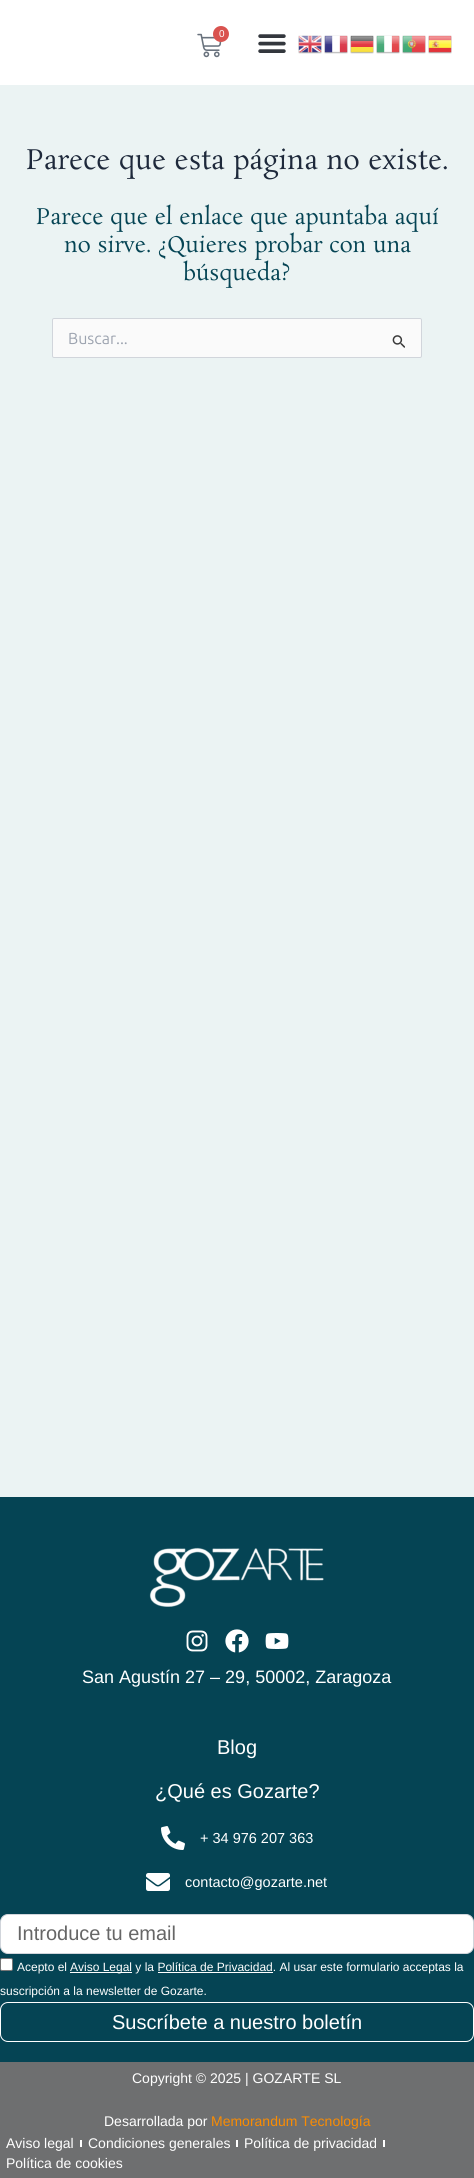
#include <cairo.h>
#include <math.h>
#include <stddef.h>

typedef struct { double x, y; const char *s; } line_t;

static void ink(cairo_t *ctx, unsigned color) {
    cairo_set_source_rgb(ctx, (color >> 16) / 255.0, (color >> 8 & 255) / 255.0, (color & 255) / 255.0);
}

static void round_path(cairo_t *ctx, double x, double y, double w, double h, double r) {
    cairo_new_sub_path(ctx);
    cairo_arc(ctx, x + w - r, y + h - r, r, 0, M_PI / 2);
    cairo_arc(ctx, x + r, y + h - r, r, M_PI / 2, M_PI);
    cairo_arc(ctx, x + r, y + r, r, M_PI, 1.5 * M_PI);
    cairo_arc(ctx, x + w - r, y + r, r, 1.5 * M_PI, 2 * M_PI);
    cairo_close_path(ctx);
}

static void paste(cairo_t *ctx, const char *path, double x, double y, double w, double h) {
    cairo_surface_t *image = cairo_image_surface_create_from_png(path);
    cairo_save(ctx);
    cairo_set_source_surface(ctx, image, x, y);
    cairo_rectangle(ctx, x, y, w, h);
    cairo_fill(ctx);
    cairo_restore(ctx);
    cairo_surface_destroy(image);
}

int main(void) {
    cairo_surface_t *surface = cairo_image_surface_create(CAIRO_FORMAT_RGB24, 474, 2178);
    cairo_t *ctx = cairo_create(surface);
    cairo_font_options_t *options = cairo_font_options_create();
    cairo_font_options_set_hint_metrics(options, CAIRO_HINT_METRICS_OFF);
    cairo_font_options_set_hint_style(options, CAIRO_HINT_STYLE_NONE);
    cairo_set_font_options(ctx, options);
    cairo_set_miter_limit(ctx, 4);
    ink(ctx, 0xEBF3F3);
    cairo_paint(ctx);
    ink(ctx, 0xFFFFFF);
    cairo_rectangle(ctx, 0, 0, 474, 85);
    cairo_fill(ctx);
    paste(ctx, "media/1.png", 197, 33, 25, 25);
    ink(ctx, 0xD9534F);
    cairo_arc(ctx, 221, 34, 8, 0, 2 * M_PI);
    cairo_fill(ctx);
    cairo_select_font_face(ctx, "Liberation Sans", CAIRO_FONT_SLANT_NORMAL, CAIRO_FONT_WEIGHT_NORMAL);
    cairo_set_font_size(ctx, 10);
    ink(ctx, 0xFFFFFF);
    cairo_move_to(ctx, 219, 37);
    cairo_show_text(ctx, "0");
    paste(ctx, "media/2.png", 258, 34, 28, 19);
    paste(ctx, "media/3.png", 298, 35, 24, 19);
    paste(ctx, "media/4.png", 324, 35, 24, 19);
    paste(ctx, "media/5.png", 350, 35, 24, 19);
    paste(ctx, "media/6.png", 376, 35, 24, 19);
    paste(ctx, "media/7.png", 402, 35, 24, 19);
    paste(ctx, "media/8.png", 428, 35, 24, 19);
    cairo_select_font_face(ctx, "Rosarivo", CAIRO_FONT_SLANT_NORMAL, CAIRO_FONT_WEIGHT_NORMAL);
    cairo_set_font_size(ctx, 27.4);
    ink(ctx, 0x1E293B);
    cairo_move_to(ctx, 26, 169);
    cairo_show_text(ctx, "Parece que esta página no existe.");
    cairo_set_font_size(ctx, 21.9);
    ink(ctx, 0x054454);
    {
        static const line_t items[] = {
            {36, 224, "Parece que el enlace que apuntaba aquí"},
            {64, 252, "no sirve. ¿Quieres probar con una"},
            {183, 280, "búsqueda?"},
        };
        for (size_t i = 0; i < sizeof items / sizeof *items; i++) {
            cairo_move_to(ctx, items[i].x, items[i].y);
            cairo_show_text(ctx, items[i].s);
        }
    }
    ink(ctx, 0xFAFAFA);
    round_path(ctx, 52.5, 318.5, 369, 39, 1.5);
    cairo_fill_preserve(ctx);
    ink(ctx, 0xD1D5DB);
    cairo_set_line_width(ctx, 1);
    cairo_stroke(ctx);
    cairo_select_font_face(ctx, "Ubuntu", CAIRO_FONT_SLANT_NORMAL, CAIRO_FONT_WEIGHT_NORMAL);
    cairo_set_font_size(ctx, 16);
    ink(ctx, 0x9CA3AF);
    cairo_move_to(ctx, 68, 344);
    cairo_show_text(ctx, "Buscar...");
    paste(ctx, "media/9.png", 392, 335, 13, 13);
    ink(ctx, 0x054454);
    cairo_rectangle(ctx, 0, 1497, 474, 565);
    cairo_fill(ctx);
    paste(ctx, "media/10.png", 149, 1547, 175, 60);
    paste(ctx, "media/11.png", 186, 1630, 22, 22);
    paste(ctx, "media/12.png", 225, 1629, 24, 24);
    paste(ctx, "media/13.png", 265, 1633, 24, 16);
    cairo_select_font_face(ctx, "Liberation Sans", CAIRO_FONT_SLANT_NORMAL, CAIRO_FONT_WEIGHT_NORMAL);
    cairo_set_font_size(ctx, 18);
    ink(ctx, 0xFFFFFF);
    cairo_move_to(ctx, 82, 1683);
    cairo_show_text(ctx, "San Agustín 27 – 29, 50002, Zaragoza");
    cairo_set_font_size(ctx, 20);
    cairo_move_to(ctx, 217, 1754);
    cairo_show_text(ctx, "Blog");
    cairo_move_to(ctx, 155, 1798);
    cairo_show_text(ctx, "¿Qué es Gozarte?");
    paste(ctx, "media/14.png", 161, 1826, 24, 24);
    cairo_set_font_size(ctx, 14.5);
    cairo_move_to(ctx, 200, 1843);
    cairo_show_text(ctx, "+ 34 976 207 363");
    paste(ctx, "media/15.png", 146, 1873, 24, 18);
    cairo_move_to(ctx, 185, 1887);
    cairo_show_text(ctx, "contacto@gozarte.net");
    round_path(ctx, 0.5, 1914.5, 473, 39, 7.5);
    cairo_fill_preserve(ctx);
    ink(ctx, 0xD1D5DB);
    cairo_stroke(ctx);
    cairo_set_font_size(ctx, 20);
    ink(ctx, 0x666666);
    cairo_move_to(ctx, 17, 1940);
    cairo_show_text(ctx, "Introduce tu email");
    ink(ctx, 0xFFFFFF);
    round_path(ctx, 0.5, 1958.5, 12, 12, 1.5);
    cairo_fill_preserve(ctx);
    ink(ctx, 0x767676);
    cairo_stroke(ctx);
    cairo_set_font_size(ctx, 12);
    ink(ctx, 0xFFFFFF);
    cairo_move_to(ctx, 17, 1971);
    cairo_show_text(ctx, "Acepto el");
    cairo_rectangle(ctx, 70, 1972, 62, 1);
    cairo_fill(ctx);
    cairo_move_to(ctx, 70, 1971);
    cairo_show_text(ctx, "Aviso Legal y la Política de Privacidad. Al usar este formulario acceptas la");
    cairo_rectangle(ctx, 158, 1972, 115, 1);
    cairo_fill(ctx);
    cairo_move_to(ctx, 0, 1995);
    cairo_show_text(ctx, "suscripción a la newsletter de Gozarte.");
    round_path(ctx, 0.5, 2002.5, 473, 39, 7.5);
    cairo_stroke(ctx);
    cairo_set_font_size(ctx, 20);
    cairo_move_to(ctx, 112, 2029);
    cairo_show_text(ctx, "Suscríbete a nuestro boletín");
    ink(ctx, 0x6E6F70);
    cairo_rectangle(ctx, 0, 2062, 474, 116);
    cairo_fill(ctx);
    cairo_set_font_size(ctx, 14);
    ink(ctx, 0xFFFFFF);
    cairo_move_to(ctx, 132, 2083);
    cairo_show_text(ctx, "Copyright © 2025 | GOZARTE SL");
    cairo_move_to(ctx, 104, 2126);
    cairo_show_text(ctx, "Desarrollada por");
    ink(ctx, 0xFA8C02);
    cairo_move_to(ctx, 211, 2126);
    cairo_show_text(ctx, "Memorandum Tecnología");
    ink(ctx, 0xFFFFFF);
    cairo_move_to(ctx, 6, 2148);
    cairo_show_text(ctx, "Aviso legal");
    cairo_rectangle(ctx, 80, 2140, 2, 7);
    cairo_fill(ctx);
    cairo_move_to(ctx, 88, 2148);
    cairo_show_text(ctx, "Condiciones generales");
    cairo_rectangle(ctx, 236, 2140, 2, 7);
    cairo_fill(ctx);
    cairo_move_to(ctx, 244, 2148);
    cairo_show_text(ctx, "Política de privacidad");
    cairo_rectangle(ctx, 383, 2140, 2, 7);
    cairo_fill(ctx);
    cairo_move_to(ctx, 6, 2168);
    cairo_show_text(ctx, "Política de cookies");
    cairo_surface_write_to_png(surface, "image.png");
    cairo_font_options_destroy(options);
    cairo_destroy(ctx);
    cairo_surface_destroy(surface);
    return 0;
}
